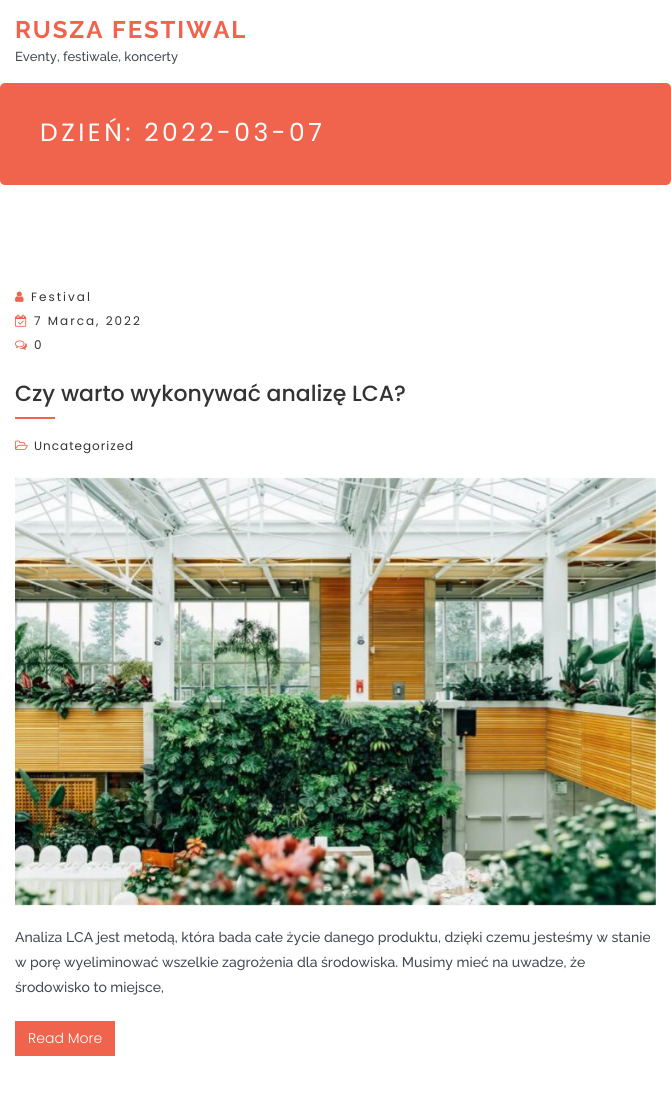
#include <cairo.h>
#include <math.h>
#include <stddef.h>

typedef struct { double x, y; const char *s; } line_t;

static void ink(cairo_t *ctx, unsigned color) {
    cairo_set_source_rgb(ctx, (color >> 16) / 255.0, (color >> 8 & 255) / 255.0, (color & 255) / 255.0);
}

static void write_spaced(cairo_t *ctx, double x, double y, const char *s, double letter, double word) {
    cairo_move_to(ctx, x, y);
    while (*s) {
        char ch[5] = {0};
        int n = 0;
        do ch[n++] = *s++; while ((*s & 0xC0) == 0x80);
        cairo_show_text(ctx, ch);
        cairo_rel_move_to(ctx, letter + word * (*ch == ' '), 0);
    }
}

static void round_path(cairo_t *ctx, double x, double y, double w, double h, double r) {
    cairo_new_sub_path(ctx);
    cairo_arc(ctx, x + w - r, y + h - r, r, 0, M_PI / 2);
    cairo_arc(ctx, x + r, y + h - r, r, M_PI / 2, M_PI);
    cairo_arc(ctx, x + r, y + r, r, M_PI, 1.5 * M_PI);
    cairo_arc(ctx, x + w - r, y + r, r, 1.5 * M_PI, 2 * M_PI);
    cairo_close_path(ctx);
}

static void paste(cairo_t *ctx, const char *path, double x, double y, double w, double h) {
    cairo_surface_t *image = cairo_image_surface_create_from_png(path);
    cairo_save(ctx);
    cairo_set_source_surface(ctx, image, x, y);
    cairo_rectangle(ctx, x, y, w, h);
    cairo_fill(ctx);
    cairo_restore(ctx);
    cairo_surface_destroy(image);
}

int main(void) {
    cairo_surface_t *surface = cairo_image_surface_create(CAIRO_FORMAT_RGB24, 671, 1102);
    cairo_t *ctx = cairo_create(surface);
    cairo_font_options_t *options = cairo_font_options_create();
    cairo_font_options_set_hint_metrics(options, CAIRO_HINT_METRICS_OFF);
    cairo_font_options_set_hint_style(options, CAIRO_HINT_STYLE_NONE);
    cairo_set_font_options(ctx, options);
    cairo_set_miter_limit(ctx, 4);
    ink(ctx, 0xFFFFFF);
    cairo_paint(ctx);
    cairo_select_font_face(ctx, "Raleway", CAIRO_FONT_SLANT_NORMAL, CAIRO_FONT_WEIGHT_BOLD);
    cairo_set_font_size(ctx, 24);
    ink(ctx, 0xF0634C);
    write_spaced(ctx, 15, 38, "RUSZA FESTIWAL", 1.9, 0);
    cairo_select_font_face(ctx, "Raleway Medium", CAIRO_FONT_SLANT_NORMAL, CAIRO_FONT_WEIGHT_NORMAL);
    cairo_set_font_size(ctx, 13);
    ink(ctx, 0x434955);
    cairo_move_to(ctx, 15, 61);
    cairo_show_text(ctx, "Eventy, festiwale, koncerty");
    ink(ctx, 0xF0634C);
    round_path(ctx, 0, 83, 671, 102, 5);
    cairo_fill(ctx);
    cairo_select_font_face(ctx, "Poppins", CAIRO_FONT_SLANT_NORMAL, CAIRO_FONT_WEIGHT_NORMAL);
    cairo_set_font_size(ctx, 25);
    ink(ctx, 0xFFFFFF);
    write_spaced(ctx, 40, 141, "DZIEŃ: 2022-03-07", 3.5, 0);
    paste(ctx, "media/1.png", 15, 291, 9, 11);
    cairo_set_font_size(ctx, 12);
    ink(ctx, 0x333333);
    write_spaced(ctx, 31, 301, "Festival", 2, 0);
    paste(ctx, "media/2.png", 15, 314, 12, 13);
    write_spaced(ctx, 34, 325, "7 Marca, 2022", 2, 0);
    paste(ctx, "media/3.png", 15, 340, 12, 10);
    write_spaced(ctx, 34, 349, "0", 2, 0);
    cairo_select_font_face(ctx, "Poppins Medium", CAIRO_FONT_SLANT_NORMAL, CAIRO_FONT_WEIGHT_NORMAL);
    cairo_set_font_size(ctx, 22);
    cairo_move_to(ctx, 15, 401);
    cairo_show_text(ctx, "Czy warto wykonywać analizę LCA?");
    ink(ctx, 0xF0634C);
    cairo_rectangle(ctx, 15, 417, 40, 2);
    cairo_fill(ctx);
    paste(ctx, "media/4.png", 15, 440, 13, 10);
    cairo_select_font_face(ctx, "Poppins", CAIRO_FONT_SLANT_NORMAL, CAIRO_FONT_WEIGHT_NORMAL);
    cairo_set_font_size(ctx, 12);
    ink(ctx, 0x333333);
    write_spaced(ctx, 34, 450, "Uncategorized", 1, 0);
    paste(ctx, "media/5.png", 15, 477, 641, 429);
    cairo_select_font_face(ctx, "Raleway Medium", CAIRO_FONT_SLANT_NORMAL, CAIRO_FONT_WEIGHT_NORMAL);
    cairo_set_font_size(ctx, 14);
    ink(ctx, 0x434955);
    {
        static const line_t items[] = {
            {15, 942, "Analiza LCA jest metodą, która bada całe życie danego produktu, dzięki czemu jesteśmy w stanie"},
            {15, 967, "w porę wyeliminować wszelkie zagrożenia dla środowiska. Musimy mieć na uwadze, że"},
            {15, 992, "środowisko to miejsce,"},
        };
        for (size_t i = 0; i < sizeof items / sizeof *items; i++) {
            cairo_move_to(ctx, items[i].x, items[i].y);
            cairo_show_text(ctx, items[i].s);
        }
    }
    ink(ctx, 0xF0634C);
    cairo_rectangle(ctx, 15, 1021, 100, 35);
    cairo_fill(ctx);
    cairo_select_font_face(ctx, "Poppins Light", CAIRO_FONT_SLANT_NORMAL, CAIRO_FONT_WEIGHT_NORMAL);
    ink(ctx, 0xFFFFFF);
    cairo_move_to(ctx, 28, 1043);
    cairo_show_text(ctx, "Read More");
    cairo_surface_write_to_png(surface, "image.png");
    cairo_font_options_destroy(options);
    cairo_destroy(ctx);
    cairo_surface_destroy(surface);
    return 0;
}
